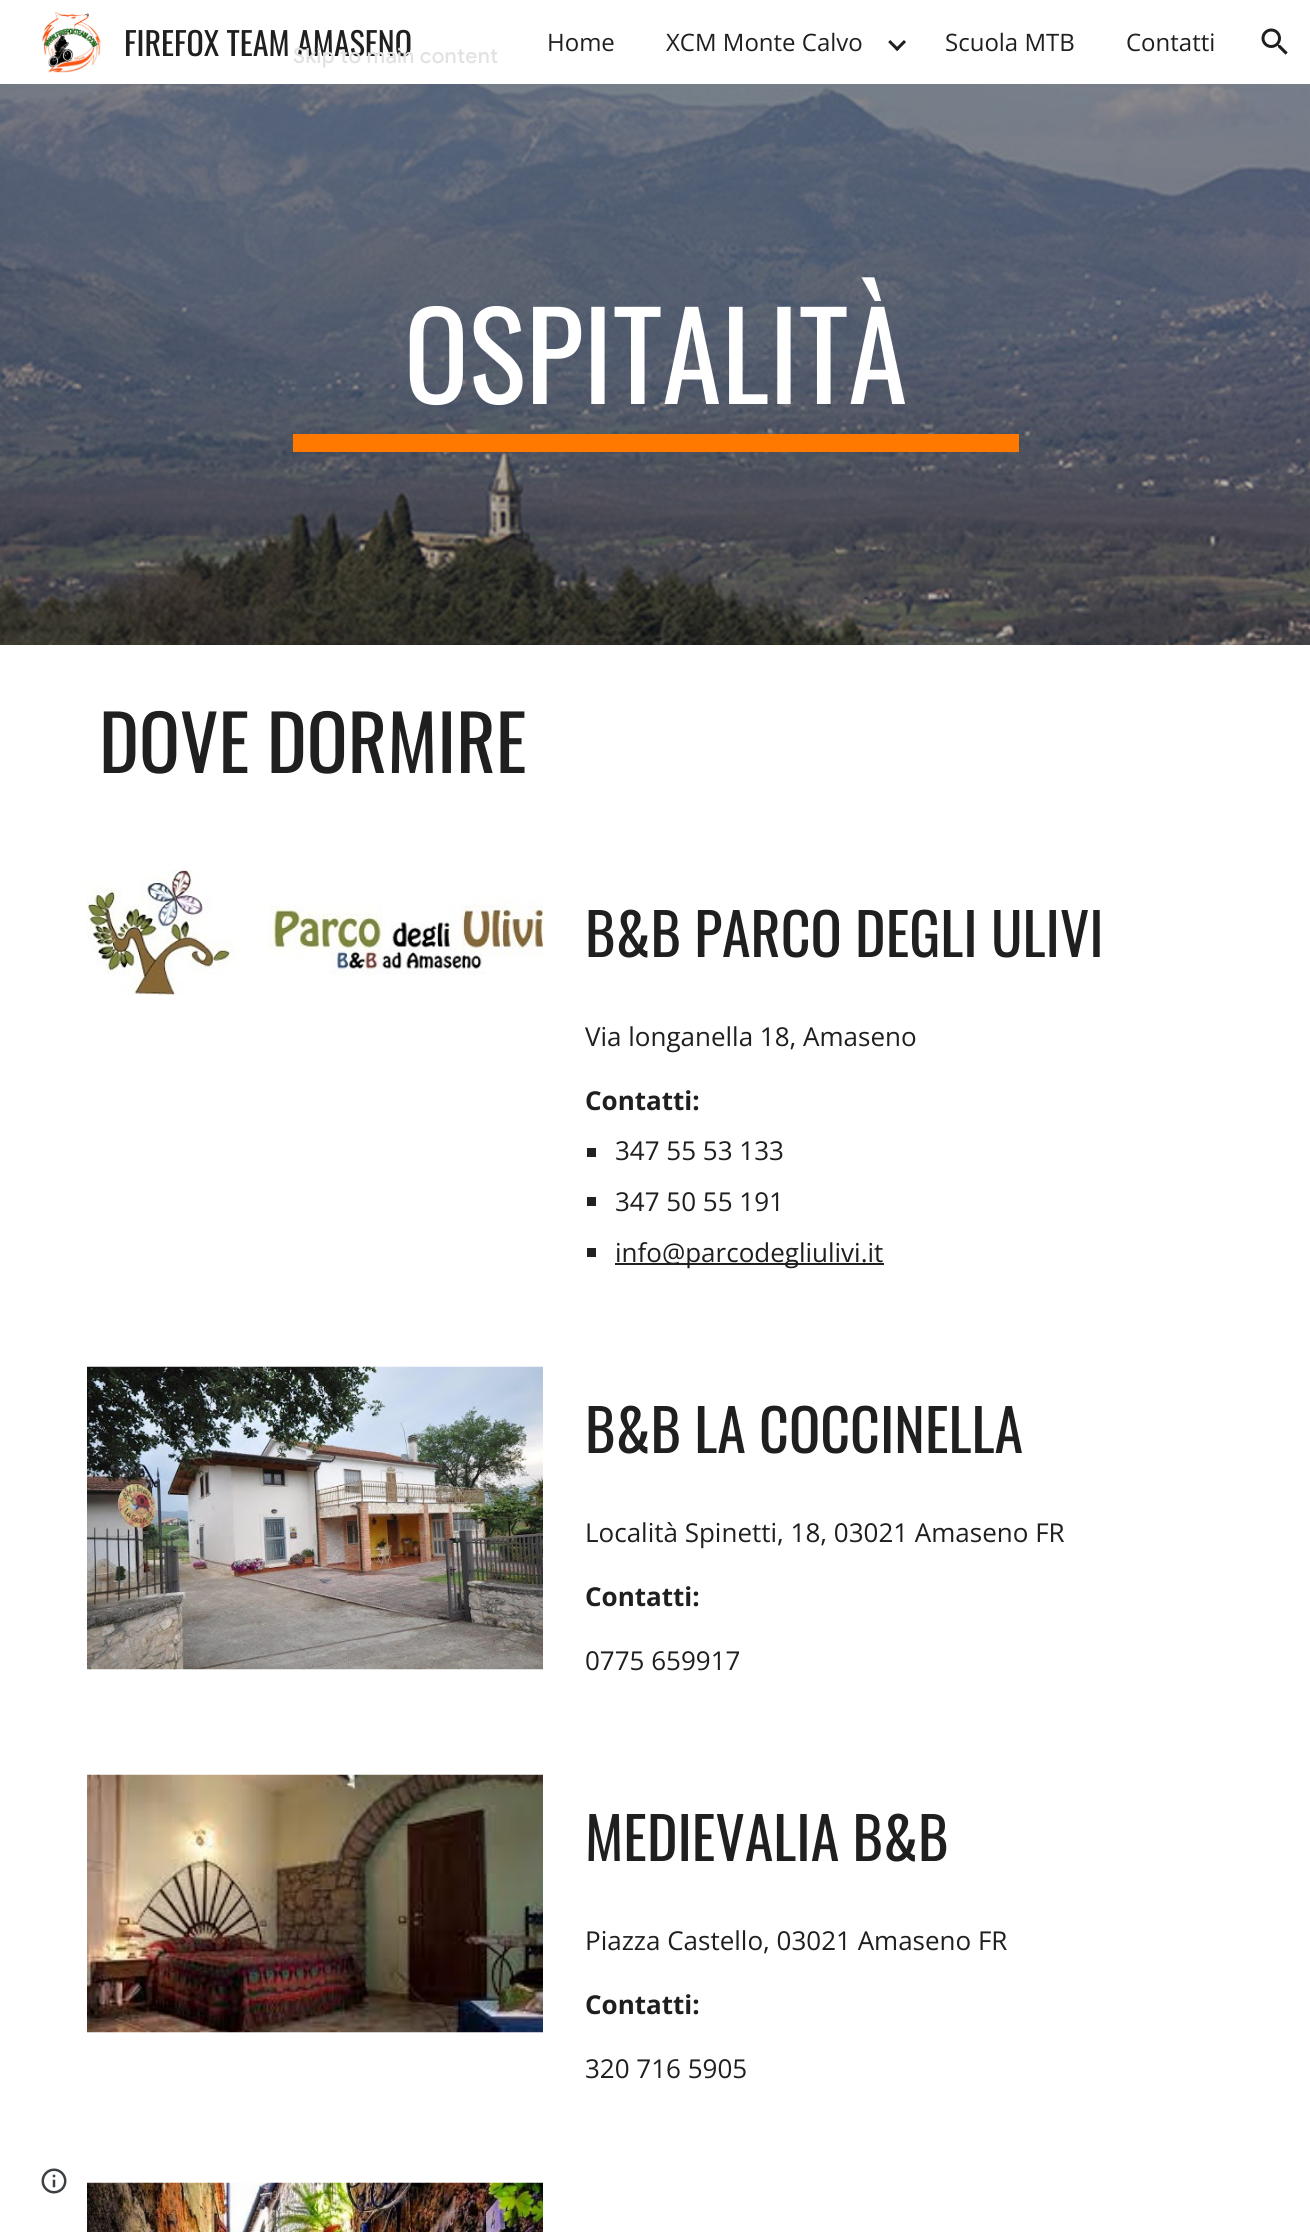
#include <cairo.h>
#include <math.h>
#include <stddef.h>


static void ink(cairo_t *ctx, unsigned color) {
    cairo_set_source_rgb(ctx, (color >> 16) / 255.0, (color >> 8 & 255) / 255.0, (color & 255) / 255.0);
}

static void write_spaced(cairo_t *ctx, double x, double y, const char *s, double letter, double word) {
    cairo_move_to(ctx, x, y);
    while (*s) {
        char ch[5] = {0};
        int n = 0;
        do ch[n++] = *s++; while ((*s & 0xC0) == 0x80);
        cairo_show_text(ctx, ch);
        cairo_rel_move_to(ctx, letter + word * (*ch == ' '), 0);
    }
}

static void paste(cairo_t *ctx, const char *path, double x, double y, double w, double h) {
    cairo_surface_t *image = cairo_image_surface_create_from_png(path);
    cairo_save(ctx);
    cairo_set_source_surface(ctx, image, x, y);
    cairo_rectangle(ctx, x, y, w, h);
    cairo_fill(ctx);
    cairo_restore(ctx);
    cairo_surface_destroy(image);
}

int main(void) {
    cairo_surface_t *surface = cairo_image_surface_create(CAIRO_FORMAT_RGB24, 1310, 2232);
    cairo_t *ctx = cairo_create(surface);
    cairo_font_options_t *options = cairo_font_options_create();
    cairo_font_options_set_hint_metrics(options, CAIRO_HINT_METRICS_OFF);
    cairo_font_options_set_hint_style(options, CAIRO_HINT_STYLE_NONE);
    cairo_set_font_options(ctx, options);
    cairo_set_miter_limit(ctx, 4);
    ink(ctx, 0xFFFFFF);
    cairo_paint(ctx);
    paste(ctx, "media/1.png", 42, 12, 59, 61);
    cairo_select_font_face(ctx, "Oswald", CAIRO_FONT_SLANT_NORMAL, CAIRO_FONT_WEIGHT_NORMAL);
    cairo_set_font_size(ctx, 32);
    ink(ctx, 0x1F1F1F);
    cairo_move_to(ctx, 124, 56);
    cairo_show_text(ctx, "FIREFOX TEAM AMASENO");
    cairo_select_font_face(ctx, "Open Sans", CAIRO_FONT_SLANT_NORMAL, CAIRO_FONT_WEIGHT_NORMAL);
    cairo_set_font_size(ctx, 24);
    cairo_move_to(ctx, 547, 51);
    cairo_show_text(ctx, "Home");
    cairo_move_to(ctx, 666, 51);
    cairo_show_text(ctx, "XCM Monte Calvo");
    paste(ctx, "media/2.png", 888, 40, 18, 11);
    cairo_move_to(ctx, 945, 51);
    cairo_show_text(ctx, "Scuola MTB");
    cairo_move_to(ctx, 1126, 51);
    cairo_show_text(ctx, "Contatti");
    paste(ctx, "media/3.png", 1261, 28, 27, 27);
    paste(ctx, "media/4.png", 0, 84, 1310, 561);
    cairo_select_font_face(ctx, "Oswald", CAIRO_FONT_SLANT_NORMAL, CAIRO_FONT_WEIGHT_NORMAL);
    cairo_set_font_size(ctx, 120);
    ink(ctx, 0xFFFFFF);
    cairo_move_to(ctx, 404, 404);
    cairo_show_text(ctx, "OSPITALITÀ");
    ink(ctx, 0xFF7900);
    cairo_rectangle(ctx, 293, 434, 726, 18);
    cairo_fill(ctx);
    cairo_set_font_size(ctx, 76);
    ink(ctx, 0x1F1F1F);
    cairo_move_to(ctx, 99, 773);
    cairo_show_text(ctx, "DOVE DORMIRE");
    paste(ctx, "media/5.png", 87, 870, 456, 125);
    cairo_set_font_size(ctx, 58);
    cairo_move_to(ctx, 585, 957);
    cairo_show_text(ctx, "B&B PARCO DEGLI ULIVI");
    cairo_select_font_face(ctx, "Open Sans", CAIRO_FONT_SLANT_NORMAL, CAIRO_FONT_WEIGHT_NORMAL);
    cairo_set_font_size(ctx, 26);
    cairo_move_to(ctx, 585, 1046);
    cairo_show_text(ctx, "Via longanella 18, Amaseno");
    cairo_select_font_face(ctx, "Open Sans", CAIRO_FONT_SLANT_NORMAL, CAIRO_FONT_WEIGHT_BOLD);
    cairo_move_to(ctx, 585, 1110);
    cairo_show_text(ctx, "Contatti:");
    ink(ctx, 0x212121);
    cairo_rectangle(ctx, 587, 1148, 9, 9);
    cairo_fill(ctx);
    cairo_select_font_face(ctx, "Open Sans", CAIRO_FONT_SLANT_NORMAL, CAIRO_FONT_WEIGHT_NORMAL);
    ink(ctx, 0x1F1F1F);
    cairo_move_to(ctx, 615, 1160);
    cairo_show_text(ctx, "347 55 53 133");
    ink(ctx, 0x212121);
    cairo_rectangle(ctx, 587, 1197, 9, 9);
    cairo_fill(ctx);
    ink(ctx, 0x1F1F1F);
    cairo_move_to(ctx, 615, 1211);
    cairo_show_text(ctx, "347 50 55 191");
    ink(ctx, 0x212121);
    cairo_rectangle(ctx, 587, 1248, 9, 9);
    cairo_fill(ctx);
    cairo_rectangle(ctx, 615, 1263, 269, 2);
    cairo_fill(ctx);
    ink(ctx, 0x1F1F1F);
    cairo_move_to(ctx, 615, 1262);
    cairo_show_text(ctx, "info@parcodegliulivi.it");
    paste(ctx, "media/6.png", 87, 1366, 456, 304);
    cairo_select_font_face(ctx, "Oswald", CAIRO_FONT_SLANT_NORMAL, CAIRO_FONT_WEIGHT_NORMAL);
    cairo_set_font_size(ctx, 58);
    cairo_move_to(ctx, 585, 1453);
    cairo_show_text(ctx, "B&B LA COCCINELLA");
    cairo_select_font_face(ctx, "Open Sans", CAIRO_FONT_SLANT_NORMAL, CAIRO_FONT_WEIGHT_NORMAL);
    cairo_set_font_size(ctx, 26);
    cairo_move_to(ctx, 585, 1542);
    cairo_show_text(ctx, "Località Spinetti, 18, 03021 Amaseno FR");
    cairo_select_font_face(ctx, "Open Sans", CAIRO_FONT_SLANT_NORMAL, CAIRO_FONT_WEIGHT_BOLD);
    cairo_move_to(ctx, 585, 1606);
    cairo_show_text(ctx, "Contatti:");
    cairo_select_font_face(ctx, "Open Sans", CAIRO_FONT_SLANT_NORMAL, CAIRO_FONT_WEIGHT_NORMAL);
    cairo_move_to(ctx, 585, 1670);
    cairo_show_text(ctx, "0775 659917");
    paste(ctx, "media/7.png", 87, 1774, 456, 259);
    cairo_select_font_face(ctx, "Oswald", CAIRO_FONT_SLANT_NORMAL, CAIRO_FONT_WEIGHT_NORMAL);
    cairo_set_font_size(ctx, 58);
    cairo_move_to(ctx, 585, 1861);
    cairo_show_text(ctx, "MEDIEVALIA B&B");
    cairo_select_font_face(ctx, "Open Sans", CAIRO_FONT_SLANT_NORMAL, CAIRO_FONT_WEIGHT_NORMAL);
    cairo_set_font_size(ctx, 26);
    cairo_move_to(ctx, 585, 1950);
    cairo_show_text(ctx, "Piazza Castello, 03021 Amaseno FR");
    cairo_select_font_face(ctx, "Open Sans", CAIRO_FONT_SLANT_NORMAL, CAIRO_FONT_WEIGHT_BOLD);
    cairo_move_to(ctx, 585, 2014);
    cairo_show_text(ctx, "Contatti:");
    cairo_select_font_face(ctx, "Open Sans", CAIRO_FONT_SLANT_NORMAL, CAIRO_FONT_WEIGHT_NORMAL);
    cairo_move_to(ctx, 585, 2078);
    cairo_show_text(ctx, "320 716 5905");
    paste(ctx, "media/8.png", 87, 2182, 456, 50);
    paste(ctx, "media/9.png", 41, 2168, 26, 26);
    cairo_select_font_face(ctx, "Google Sans Medium", CAIRO_FONT_SLANT_NORMAL, CAIRO_FONT_WEIGHT_NORMAL);
    cairo_set_font_size(ctx, 21);
    ink(ctx, 0xE2E2E2);
    write_spaced(ctx, 293, 63, "Skip to main content", 0.25, 0);
    cairo_surface_write_to_png(surface, "image.png");
    cairo_font_options_destroy(options);
    cairo_destroy(ctx);
    cairo_surface_destroy(surface);
    return 0;
}
